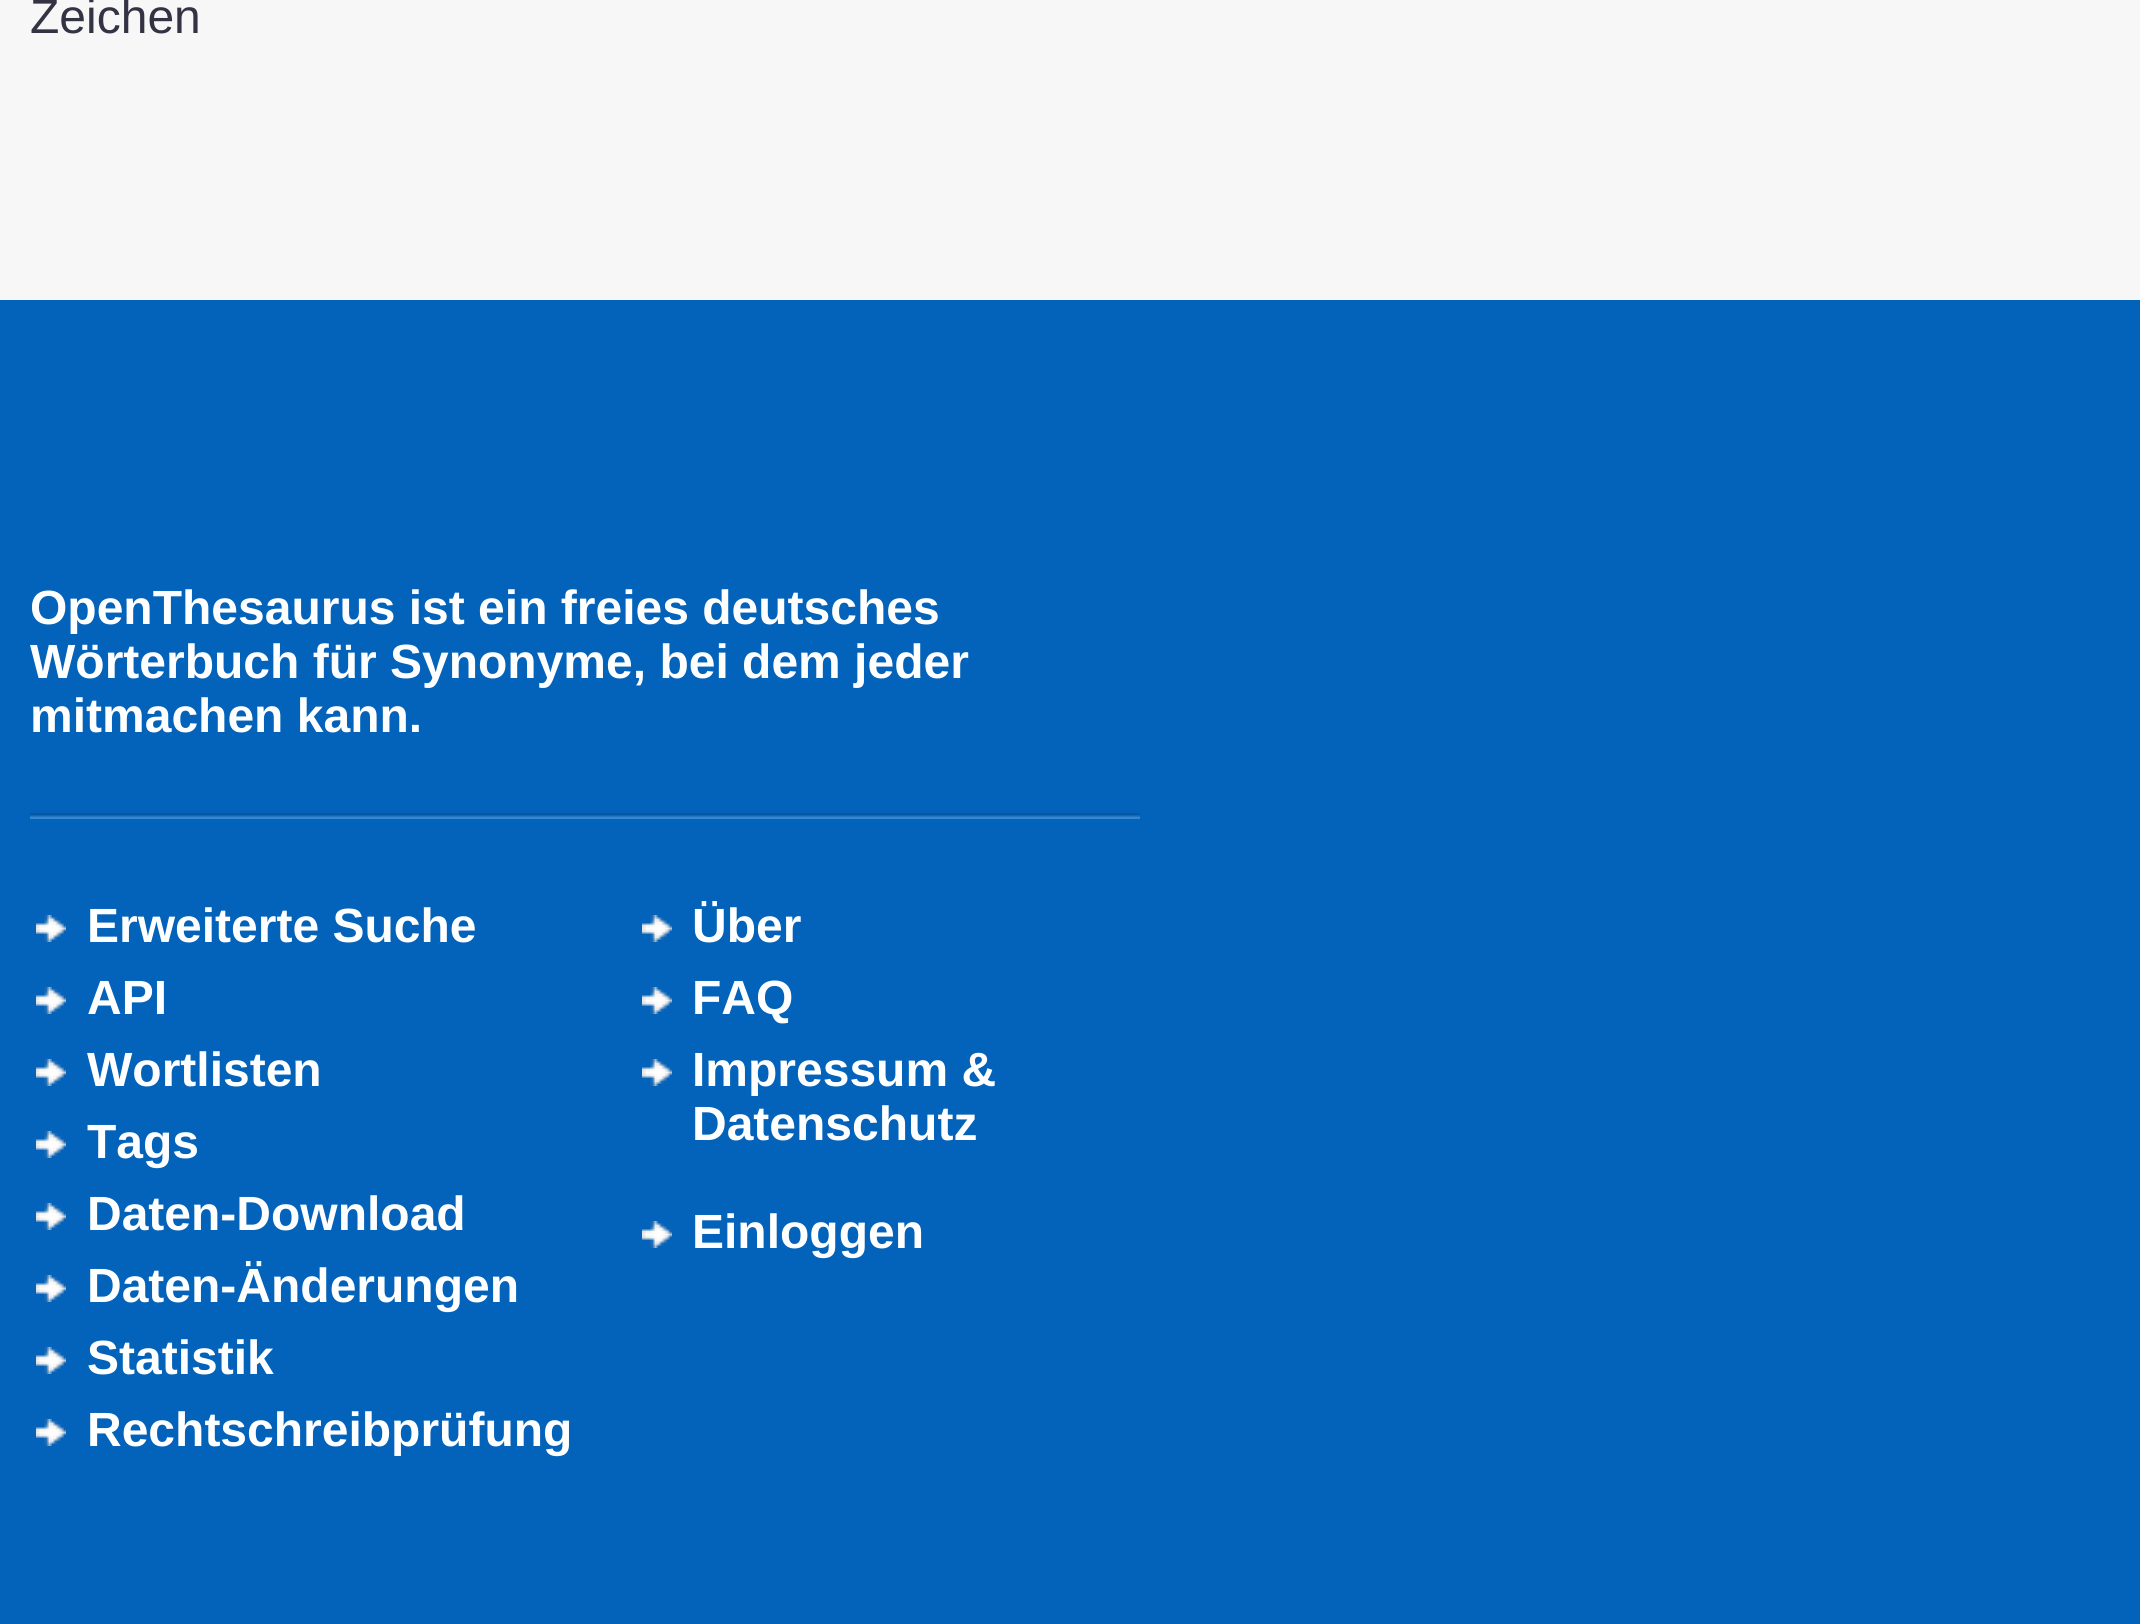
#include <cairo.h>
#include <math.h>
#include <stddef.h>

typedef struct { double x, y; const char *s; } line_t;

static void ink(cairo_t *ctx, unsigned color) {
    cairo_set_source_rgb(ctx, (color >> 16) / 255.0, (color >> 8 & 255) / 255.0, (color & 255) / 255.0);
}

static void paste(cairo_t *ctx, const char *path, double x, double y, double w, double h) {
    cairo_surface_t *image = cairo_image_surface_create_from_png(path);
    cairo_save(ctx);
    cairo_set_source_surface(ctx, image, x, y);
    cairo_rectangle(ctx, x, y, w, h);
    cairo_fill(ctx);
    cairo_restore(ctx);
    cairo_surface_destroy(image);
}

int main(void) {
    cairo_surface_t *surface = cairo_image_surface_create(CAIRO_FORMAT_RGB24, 2140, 1624);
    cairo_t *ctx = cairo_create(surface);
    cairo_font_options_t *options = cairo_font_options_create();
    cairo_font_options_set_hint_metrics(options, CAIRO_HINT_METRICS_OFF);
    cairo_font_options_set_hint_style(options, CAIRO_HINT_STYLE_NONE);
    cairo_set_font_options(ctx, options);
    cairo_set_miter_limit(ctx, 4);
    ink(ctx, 0x0362B9);
    cairo_paint(ctx);
    ink(ctx, 0xF7F7F7);
    cairo_rectangle(ctx, 0, 0, 2140, 300);
    cairo_fill(ctx);
    cairo_select_font_face(ctx, "Liberation Sans", CAIRO_FONT_SLANT_NORMAL, CAIRO_FONT_WEIGHT_NORMAL);
    cairo_set_font_size(ctx, 48);
    ink(ctx, 0x333344);
    cairo_move_to(ctx, 30, 33);
    cairo_show_text(ctx, "Zeichen");
    cairo_select_font_face(ctx, "Liberation Sans", CAIRO_FONT_SLANT_NORMAL, CAIRO_FONT_WEIGHT_BOLD);
    ink(ctx, 0xFFFFFF);
    {
        static const line_t items[] = {
            {30, 624, "OpenThesaurus ist ein freies deutsches"},
            {30, 678, "Wörterbuch für Synonyme, bei dem jeder"},
            {30, 732, "mitmachen kann."},
        };
        for (size_t i = 0; i < sizeof items / sizeof *items; i++) {
            cairo_move_to(ctx, items[i].x, items[i].y);
            cairo_show_text(ctx, items[i].s);
        }
    }
    paste(ctx, "media/1.png", 30, 813, 1110, 6);
    paste(ctx, "media/2.png", 36, 915, 30, 27);
    cairo_move_to(ctx, 87, 942);
    cairo_show_text(ctx, "Erweiterte Suche");
    paste(ctx, "media/2.png", 36, 987, 30, 27);
    cairo_move_to(ctx, 87, 1014);
    cairo_show_text(ctx, "API");
    paste(ctx, "media/2.png", 36, 1059, 30, 27);
    cairo_move_to(ctx, 87, 1086);
    cairo_show_text(ctx, "Wortlisten");
    paste(ctx, "media/2.png", 36, 1131, 30, 27);
    cairo_move_to(ctx, 87, 1158);
    cairo_show_text(ctx, "Tags");
    paste(ctx, "media/2.png", 36, 1203, 30, 27);
    cairo_move_to(ctx, 87, 1230);
    cairo_show_text(ctx, "Daten-Download");
    paste(ctx, "media/2.png", 36, 1275, 30, 27);
    cairo_move_to(ctx, 87, 1302);
    cairo_show_text(ctx, "Daten-Änderungen");
    paste(ctx, "media/2.png", 36, 1347, 30, 27);
    cairo_move_to(ctx, 87, 1374);
    cairo_show_text(ctx, "Statistik");
    paste(ctx, "media/2.png", 36, 1419, 30, 27);
    cairo_move_to(ctx, 87, 1446);
    cairo_show_text(ctx, "Rechtschreibprüfung");
    paste(ctx, "media/2.png", 642, 915, 30, 27);
    cairo_move_to(ctx, 692, 942);
    cairo_show_text(ctx, "Über");
    paste(ctx, "media/2.png", 642, 987, 30, 27);
    cairo_move_to(ctx, 692, 1014);
    cairo_show_text(ctx, "FAQ");
    paste(ctx, "media/2.png", 642, 1059, 30, 27);
    cairo_move_to(ctx, 692, 1086);
    cairo_show_text(ctx, "Impressum &");
    cairo_move_to(ctx, 692, 1140);
    cairo_show_text(ctx, "Datenschutz");
    paste(ctx, "media/2.png", 642, 1221, 30, 27);
    cairo_move_to(ctx, 692, 1248);
    cairo_show_text(ctx, "Einloggen");
    cairo_surface_write_to_png(surface, "image.png");
    cairo_font_options_destroy(options);
    cairo_destroy(ctx);
    cairo_surface_destroy(surface);
    return 0;
}
